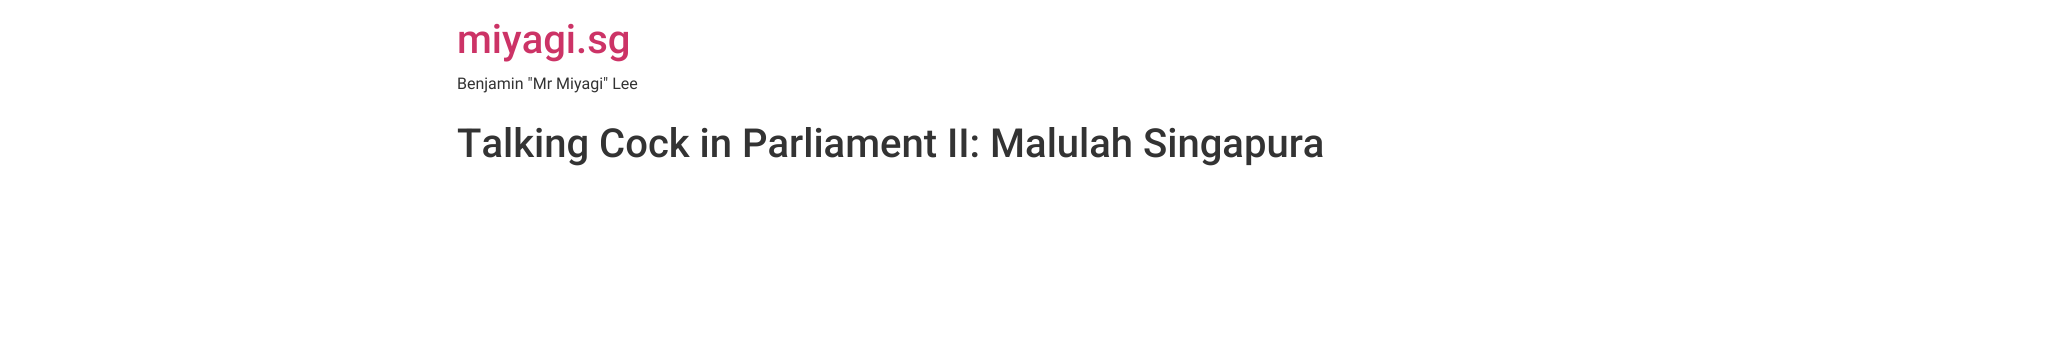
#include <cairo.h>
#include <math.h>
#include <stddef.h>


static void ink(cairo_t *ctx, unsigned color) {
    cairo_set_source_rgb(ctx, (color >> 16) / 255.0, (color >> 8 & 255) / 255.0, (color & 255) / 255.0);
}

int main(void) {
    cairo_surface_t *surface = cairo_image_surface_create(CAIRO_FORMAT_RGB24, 2053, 351);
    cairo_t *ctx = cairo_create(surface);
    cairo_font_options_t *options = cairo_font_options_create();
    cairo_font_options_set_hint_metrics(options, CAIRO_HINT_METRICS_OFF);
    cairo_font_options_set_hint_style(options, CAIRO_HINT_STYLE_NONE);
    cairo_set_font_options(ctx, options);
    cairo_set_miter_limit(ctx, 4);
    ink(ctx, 0xFFFFFF);
    cairo_paint(ctx);
    cairo_select_font_face(ctx, "Roboto Medium", CAIRO_FONT_SLANT_NORMAL, CAIRO_FONT_WEIGHT_NORMAL);
    cairo_set_font_size(ctx, 40);
    ink(ctx, 0xCC3366);
    cairo_move_to(ctx, 457, 53);
    cairo_show_text(ctx, "miyagi.sg");
    cairo_select_font_face(ctx, "Roboto", CAIRO_FONT_SLANT_NORMAL, CAIRO_FONT_WEIGHT_NORMAL);
    cairo_set_font_size(ctx, 16);
    ink(ctx, 0x333333);
    cairo_move_to(ctx, 457, 89);
    cairo_show_text(ctx, "Benjamin \"Mr Miyagi\" Lee");
    cairo_select_font_face(ctx, "Roboto Medium", CAIRO_FONT_SLANT_NORMAL, CAIRO_FONT_WEIGHT_NORMAL);
    cairo_set_font_size(ctx, 40);
    cairo_move_to(ctx, 457, 157);
    cairo_show_text(ctx, "Talking Cock in Parliament II: Malulah Singapura");
    cairo_surface_write_to_png(surface, "image.png");
    cairo_font_options_destroy(options);
    cairo_destroy(ctx);
    cairo_surface_destroy(surface);
    return 0;
}
